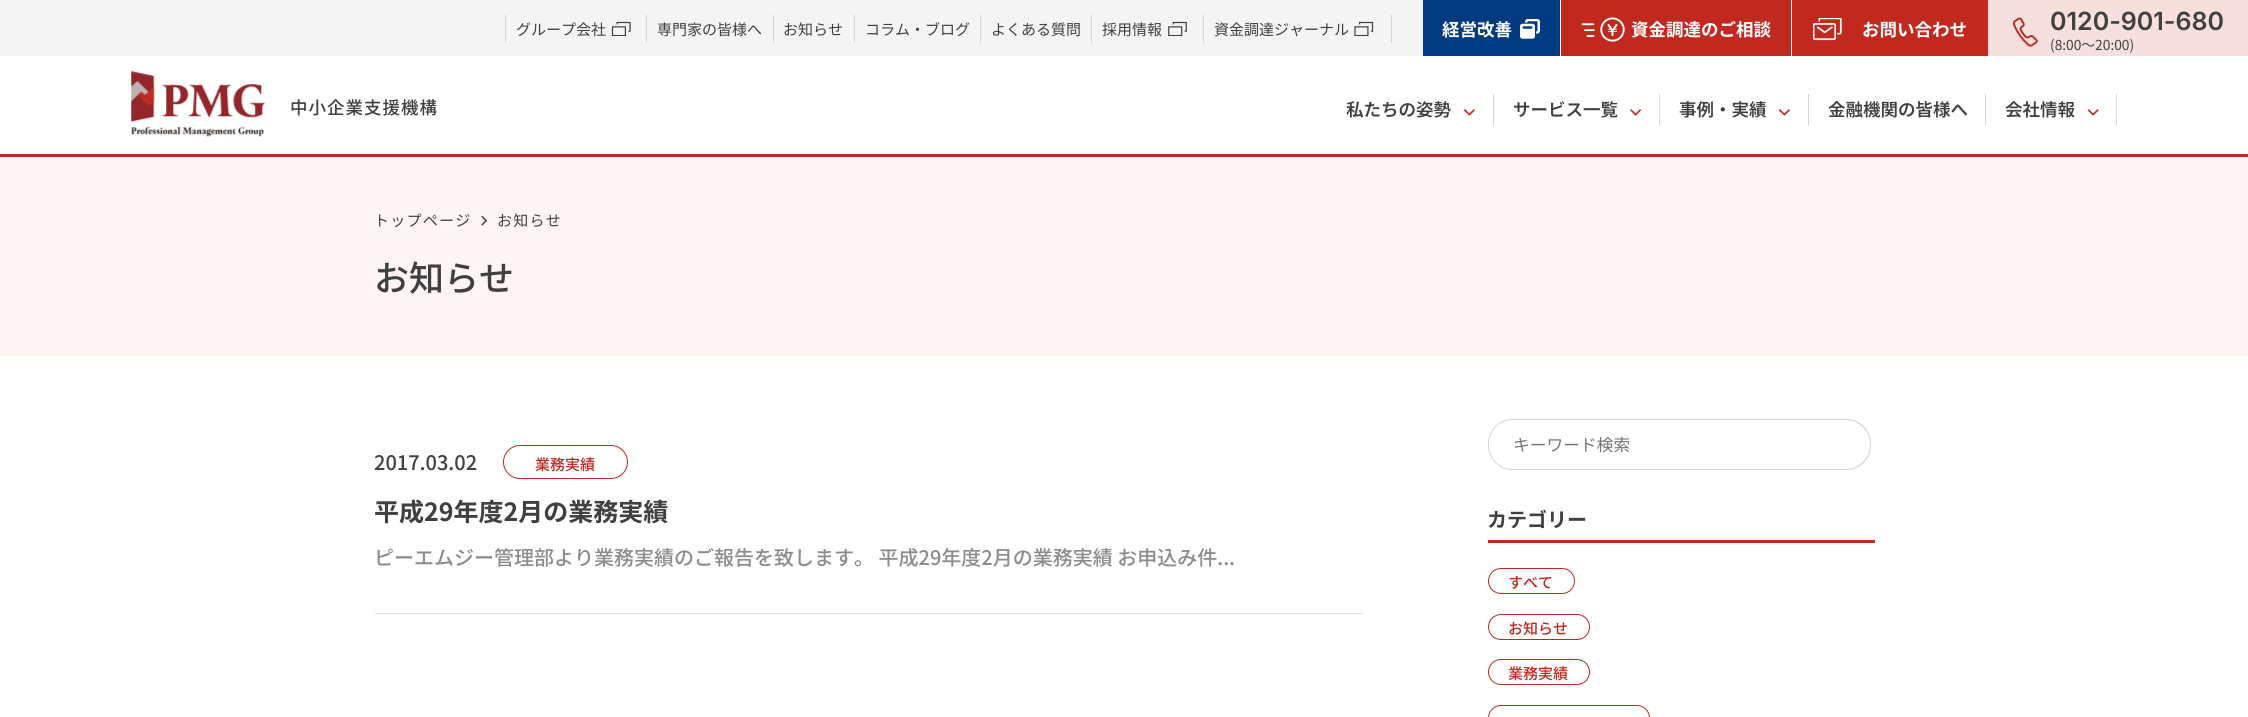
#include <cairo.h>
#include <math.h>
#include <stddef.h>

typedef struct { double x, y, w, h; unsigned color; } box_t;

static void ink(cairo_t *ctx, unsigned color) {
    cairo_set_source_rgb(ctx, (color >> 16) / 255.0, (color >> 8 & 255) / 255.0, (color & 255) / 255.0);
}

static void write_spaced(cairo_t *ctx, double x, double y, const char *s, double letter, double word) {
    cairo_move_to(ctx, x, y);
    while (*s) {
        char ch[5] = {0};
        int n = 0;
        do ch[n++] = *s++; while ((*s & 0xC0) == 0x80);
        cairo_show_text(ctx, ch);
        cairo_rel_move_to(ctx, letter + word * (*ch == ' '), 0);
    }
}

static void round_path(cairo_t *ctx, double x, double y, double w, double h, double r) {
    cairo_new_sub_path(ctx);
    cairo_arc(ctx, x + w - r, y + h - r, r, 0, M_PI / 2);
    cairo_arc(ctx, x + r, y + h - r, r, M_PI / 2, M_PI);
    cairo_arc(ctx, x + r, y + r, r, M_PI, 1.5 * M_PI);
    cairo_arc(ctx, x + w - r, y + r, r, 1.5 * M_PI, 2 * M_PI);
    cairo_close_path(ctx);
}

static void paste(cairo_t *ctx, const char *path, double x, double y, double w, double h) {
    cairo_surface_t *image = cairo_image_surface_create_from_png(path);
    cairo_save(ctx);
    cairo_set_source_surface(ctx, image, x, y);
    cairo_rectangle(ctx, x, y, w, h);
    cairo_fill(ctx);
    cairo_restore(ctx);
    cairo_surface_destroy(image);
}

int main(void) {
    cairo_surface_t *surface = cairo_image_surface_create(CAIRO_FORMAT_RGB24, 2248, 717);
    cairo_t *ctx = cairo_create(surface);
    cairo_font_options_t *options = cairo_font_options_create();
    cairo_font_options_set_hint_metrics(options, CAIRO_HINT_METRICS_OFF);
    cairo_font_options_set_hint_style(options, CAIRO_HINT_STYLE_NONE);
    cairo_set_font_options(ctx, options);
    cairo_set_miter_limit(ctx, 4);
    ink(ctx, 0xFFFFFF);
    cairo_paint(ctx);
    {
        static const box_t items[] = {
            {0, 154, 2248, 3, 0xC1291F},
            {0, 0, 1423, 56, 0xF4F4F4},
            {646, 15, 1, 28, 0xD3D3D3},
            {505, 15, 1, 28, 0xD3D3D3},
        };
        for (size_t i = 0; i < sizeof items / sizeof *items; i++) {
            ink(ctx, items[i].color);
            cairo_rectangle(ctx, items[i].x, items[i].y, items[i].w, items[i].h);
            cairo_fill(ctx);
        }
    }
    cairo_select_font_face(ctx, "Noto Sans JP", CAIRO_FONT_SLANT_NORMAL, CAIRO_FONT_WEIGHT_NORMAL);
    cairo_set_font_size(ctx, 15);
    ink(ctx, 0x404040);
    cairo_move_to(ctx, 516, 35);
    cairo_show_text(ctx, "グループ会社");
    paste(ctx, "media/1.png", 611, 21, 20, 15);
    ink(ctx, 0xD3D3D3);
    cairo_rectangle(ctx, 773, 15, 1, 28);
    cairo_fill(ctx);
    ink(ctx, 0x404040);
    cairo_move_to(ctx, 657, 35);
    cairo_show_text(ctx, "専門家の皆様へ");
    ink(ctx, 0xD3D3D3);
    cairo_rectangle(ctx, 854, 15, 1, 28);
    cairo_fill(ctx);
    ink(ctx, 0x404040);
    cairo_move_to(ctx, 783, 35);
    cairo_show_text(ctx, "お知らせ");
    ink(ctx, 0xD3D3D3);
    cairo_rectangle(ctx, 980, 15, 1, 28);
    cairo_fill(ctx);
    ink(ctx, 0x404040);
    cairo_move_to(ctx, 865, 35);
    cairo_show_text(ctx, "コラム・ブログ");
    ink(ctx, 0xD3D3D3);
    cairo_rectangle(ctx, 1091, 15, 1, 28);
    cairo_fill(ctx);
    ink(ctx, 0x404040);
    cairo_move_to(ctx, 991, 35);
    cairo_show_text(ctx, "よくある質問");
    ink(ctx, 0xD3D3D3);
    cairo_rectangle(ctx, 1203, 15, 1, 28);
    cairo_fill(ctx);
    ink(ctx, 0x404040);
    cairo_move_to(ctx, 1102, 35);
    cairo_show_text(ctx, "採用情報");
    paste(ctx, "media/2.png", 1168, 21, 19, 15);
    ink(ctx, 0xD3D3D3);
    cairo_rectangle(ctx, 1391, 15, 1, 28);
    cairo_fill(ctx);
    ink(ctx, 0x404040);
    cairo_move_to(ctx, 1214, 35);
    cairo_show_text(ctx, "資金調達ジャーナル");
    paste(ctx, "media/3.png", 1354, 21, 20, 15);
    ink(ctx, 0xF6DFDD);
    cairo_rectangle(ctx, 1988, 0, 260, 56);
    cairo_fill(ctx);
    ink(ctx, 0x003B82);
    cairo_rectangle(ctx, 1423, 0, 137, 56);
    cairo_fill(ctx);
    cairo_select_font_face(ctx, "Noto Sans JP", CAIRO_FONT_SLANT_NORMAL, CAIRO_FONT_WEIGHT_BOLD);
    cairo_set_font_size(ctx, 17.5);
    ink(ctx, 0xFFFFFF);
    cairo_move_to(ctx, 1442, 36);
    cairo_show_text(ctx, "経営改善");
    paste(ctx, "media/4.png", 1520, 19, 20, 20);
    ink(ctx, 0xC1291F);
    cairo_rectangle(ctx, 1561, 0, 427, 56);
    cairo_fill(ctx);
    ink(ctx, 0xFFFFFF);
    cairo_rectangle(ctx, 1791, 0, 1, 56);
    cairo_fill(ctx);
    paste(ctx, "media/5.png", 1581, 17, 44, 25);
    cairo_move_to(ctx, 1631, 36);
    cairo_show_text(ctx, "資金調達のご相談");
    paste(ctx, "media/6.png", 1813, 18, 29, 23);
    cairo_move_to(ctx, 1862, 36);
    cairo_show_text(ctx, "お問い合わせ");
    paste(ctx, "media/7.png", 2013, 17, 25, 30);
    cairo_select_font_face(ctx, "Inter SemiBold", CAIRO_FONT_SLANT_NORMAL, CAIRO_FONT_WEIGHT_NORMAL);
    cairo_set_font_size(ctx, 25);
    ink(ctx, 0x404040);
    cairo_move_to(ctx, 2050, 30);
    cairo_show_text(ctx, "0120-901-680");
    cairo_select_font_face(ctx, "Noto Sans JP", CAIRO_FONT_SLANT_NORMAL, CAIRO_FONT_WEIGHT_NORMAL);
    cairo_set_font_size(ctx, 13.75);
    cairo_move_to(ctx, 2050, 50);
    cairo_show_text(ctx, "(8:00〜20:00)");
    paste(ctx, "media/8.png", 131, 71, 135, 66);
    cairo_select_font_face(ctx, "Noto Sans JP Medium", CAIRO_FONT_SLANT_NORMAL, CAIRO_FONT_WEIGHT_NORMAL);
    cairo_set_font_size(ctx, 17.5);
    write_spaced(ctx, 290, 114, "中小企業支援機構", 1, 0);
    cairo_select_font_face(ctx, "Noto Sans JP SemiBold", CAIRO_FONT_SLANT_NORMAL, CAIRO_FONT_WEIGHT_NORMAL);
    cairo_move_to(ctx, 1346, 116);
    cairo_show_text(ctx, "私たちの姿勢");
    paste(ctx, "media/9.png", 1464, 109, 11, 7);
    ink(ctx, 0xD3D3D3);
    cairo_rectangle(ctx, 1493, 94, 1, 31);
    cairo_fill(ctx);
    ink(ctx, 0x404040);
    cairo_move_to(ctx, 1513, 116);
    cairo_show_text(ctx, "サービス一覧");
    paste(ctx, "media/10.png", 1630, 109, 11, 7);
    ink(ctx, 0xD3D3D3);
    cairo_rectangle(ctx, 1659, 94, 1, 31);
    cairo_fill(ctx);
    ink(ctx, 0x404040);
    cairo_move_to(ctx, 1679, 116);
    cairo_show_text(ctx, "事例・実績");
    paste(ctx, "media/9.png", 1779, 109, 11, 7);
    ink(ctx, 0xD3D3D3);
    cairo_rectangle(ctx, 1808, 94, 1, 31);
    cairo_fill(ctx);
    ink(ctx, 0x404040);
    cairo_move_to(ctx, 1828, 116);
    cairo_show_text(ctx, "金融機関の皆様へ");
    ink(ctx, 0xD3D3D3);
    cairo_rectangle(ctx, 1985, 94, 1, 31);
    cairo_fill(ctx);
    ink(ctx, 0x404040);
    cairo_move_to(ctx, 2005, 116);
    cairo_show_text(ctx, "会社情報");
    paste(ctx, "media/11.png", 2088, 109, 11, 7);
    ink(ctx, 0xD3D3D3);
    cairo_rectangle(ctx, 2116, 94, 1, 31);
    cairo_fill(ctx);
    ink(ctx, 0xFFF5F4);
    cairo_rectangle(ctx, 0, 157, 2248, 199);
    cairo_fill(ctx);
    cairo_select_font_face(ctx, "Noto Sans JP", CAIRO_FONT_SLANT_NORMAL, CAIRO_FONT_WEIGHT_NORMAL);
    cairo_set_font_size(ctx, 15);
    ink(ctx, 0x404040);
    write_spaced(ctx, 374, 226, "トップページ", 1.25, 0);
    paste(ctx, "media/12.png", 481, 215, 7, 11);
    write_spaced(ctx, 497, 226, "お知らせ", 1.25, 0);
    cairo_select_font_face(ctx, "Noto Sans JP Medium", CAIRO_FONT_SLANT_NORMAL, CAIRO_FONT_WEIGHT_NORMAL);
    cairo_set_font_size(ctx, 35);
    cairo_move_to(ctx, 374, 291);
    cairo_show_text(ctx, "お知らせ");
    ink(ctx, 0xDFDFDF);
    cairo_rectangle(ctx, 375, 613, 988, 1);
    cairo_fill(ctx);
    cairo_set_font_size(ctx, 20);
    ink(ctx, 0x404040);
    cairo_move_to(ctx, 374, 470);
    cairo_show_text(ctx, "2017.03.02");
    round_path(ctx, 503.5, 445.5, 124, 33, 16.5);
    ink(ctx, 0xC1291F);
    cairo_set_line_width(ctx, 1);
    cairo_stroke(ctx);
    cairo_set_font_size(ctx, 15);
    cairo_move_to(ctx, 535, 470);
    cairo_show_text(ctx, "業務実績");
    cairo_select_font_face(ctx, "Noto Sans JP", CAIRO_FONT_SLANT_NORMAL, CAIRO_FONT_WEIGHT_BOLD);
    cairo_set_font_size(ctx, 25);
    ink(ctx, 0x404040);
    cairo_move_to(ctx, 374, 521);
    cairo_show_text(ctx, "平成29年度2月の業務実績");
    cairo_select_font_face(ctx, "Noto Sans JP Medium", CAIRO_FONT_SLANT_NORMAL, CAIRO_FONT_WEIGHT_NORMAL);
    cairo_set_font_size(ctx, 20);
    ink(ctx, 0x8C8C8C);
    cairo_move_to(ctx, 374, 565);
    cairo_show_text(ctx, "ピーエムジー管理部より業務実績のご報告を致します。 平成29年度2月の業務実績 お申込み件...");
    ink(ctx, 0xD3D3D3);
    cairo_set_fill_rule(ctx, CAIRO_FILL_RULE_EVEN_ODD);
    cairo_new_path(ctx);
    cairo_move_to(ctx, 1512, 419);
    cairo_line_to(ctx, 1812, 419);
    cairo_line_to(ctx, 1812, 470);
    cairo_line_to(ctx, 1512, 470);
    cairo_curve_to(ctx, 1499, 470, 1488, 459, 1488, 445);
    cairo_line_to(ctx, 1488, 444);
    cairo_curve_to(ctx, 1488, 430, 1499, 419, 1512, 419);
    cairo_close_path(ctx);
    cairo_move_to(ctx, 1512, 420);
    cairo_line_to(ctx, 1812, 420);
    cairo_line_to(ctx, 1812, 469);
    cairo_line_to(ctx, 1512, 469);
    cairo_curve_to(ctx, 1499, 469, 1489, 458, 1489, 445);
    cairo_line_to(ctx, 1489, 444);
    cairo_curve_to(ctx, 1489, 431, 1499, 420, 1512, 420);
    cairo_close_path(ctx);
    cairo_fill(ctx);
    cairo_select_font_face(ctx, "Noto Sans JP", CAIRO_FONT_SLANT_NORMAL, CAIRO_FONT_WEIGHT_NORMAL);
    cairo_set_font_size(ctx, 16.75);
    ink(ctx, 0x757575);
    cairo_move_to(ctx, 1513, 451);
    cairo_show_text(ctx, "キーワード検索");
    ink(ctx, 0xFFFFFF);
    cairo_new_path(ctx);
    cairo_move_to(ctx, 1811, 419);
    cairo_line_to(ctx, 1846, 419);
    cairo_curve_to(ctx, 1860, 419, 1871, 430, 1871, 444);
    cairo_line_to(ctx, 1871, 445);
    cairo_curve_to(ctx, 1871, 459, 1860, 470, 1846, 470);
    cairo_line_to(ctx, 1811, 470);
    cairo_close_path(ctx);
    cairo_fill(ctx);
    ink(ctx, 0xD3D3D3);
    cairo_new_path(ctx);
    cairo_move_to(ctx, 1811, 419);
    cairo_line_to(ctx, 1846, 419);
    cairo_curve_to(ctx, 1860, 419, 1871, 430, 1871, 444);
    cairo_line_to(ctx, 1871, 445);
    cairo_curve_to(ctx, 1871, 459, 1860, 470, 1846, 470);
    cairo_line_to(ctx, 1811, 470);
    cairo_close_path(ctx);
    cairo_move_to(ctx, 1811, 420);
    cairo_line_to(ctx, 1846, 420);
    cairo_curve_to(ctx, 1859, 420, 1870, 431, 1870, 444);
    cairo_line_to(ctx, 1870, 445);
    cairo_curve_to(ctx, 1870, 458, 1859, 469, 1846, 469);
    cairo_line_to(ctx, 1811, 469);
    cairo_close_path(ctx);
    cairo_fill(ctx);
    ink(ctx, 0xC1291F);
    cairo_rectangle(ctx, 1488, 540, 387, 3);
    cairo_fill(ctx);
    cairo_select_font_face(ctx, "Noto Sans JP", CAIRO_FONT_SLANT_NORMAL, CAIRO_FONT_WEIGHT_BOLD);
    cairo_set_font_size(ctx, 20);
    ink(ctx, 0x404040);
    cairo_move_to(ctx, 1487, 527);
    cairo_show_text(ctx, "カテゴリー");
    round_path(ctx, 1488.5, 568.5, 86, 25, 12.5);
    ink(ctx, 0xC1291F);
    cairo_stroke(ctx);
    cairo_select_font_face(ctx, "Noto Sans JP Medium", CAIRO_FONT_SLANT_NORMAL, CAIRO_FONT_WEIGHT_NORMAL);
    cairo_set_font_size(ctx, 15);
    cairo_move_to(ctx, 1508, 588);
    cairo_show_text(ctx, "すべて");
    round_path(ctx, 1488.5, 614.5, 101, 25, 12.5);
    cairo_stroke(ctx);
    cairo_move_to(ctx, 1508, 634);
    cairo_show_text(ctx, "お知らせ");
    round_path(ctx, 1488.5, 659.5, 101, 25, 12.5);
    cairo_stroke(ctx);
    cairo_move_to(ctx, 1508, 679);
    cairo_show_text(ctx, "業務実績");
    round_path(ctx, 1488.5, 705.5, 161, 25, 12.5);
    cairo_stroke(ctx);
    cairo_surface_write_to_png(surface, "image.png");
    cairo_font_options_destroy(options);
    cairo_destroy(ctx);
    cairo_surface_destroy(surface);
    return 0;
}
